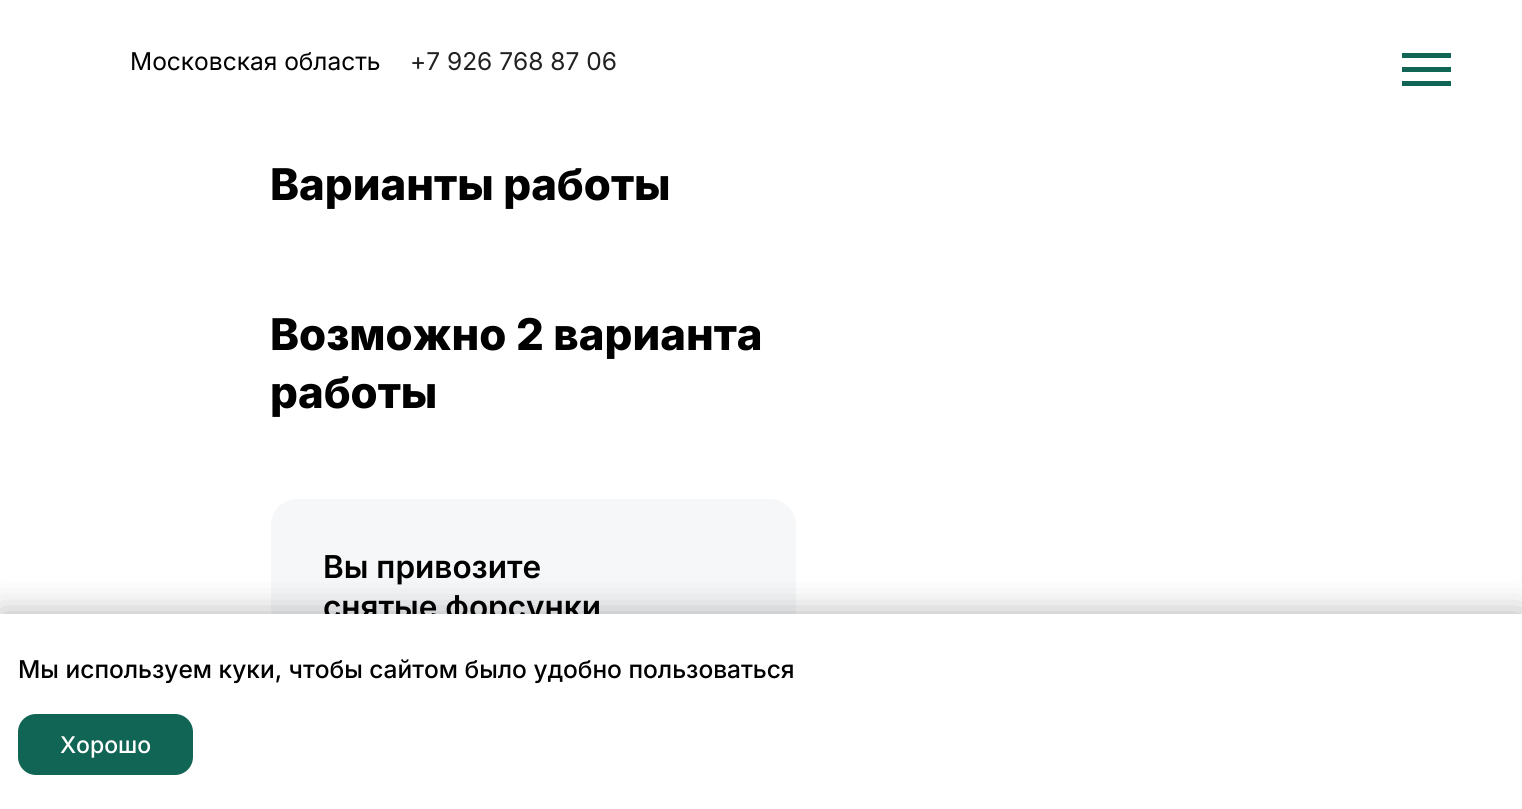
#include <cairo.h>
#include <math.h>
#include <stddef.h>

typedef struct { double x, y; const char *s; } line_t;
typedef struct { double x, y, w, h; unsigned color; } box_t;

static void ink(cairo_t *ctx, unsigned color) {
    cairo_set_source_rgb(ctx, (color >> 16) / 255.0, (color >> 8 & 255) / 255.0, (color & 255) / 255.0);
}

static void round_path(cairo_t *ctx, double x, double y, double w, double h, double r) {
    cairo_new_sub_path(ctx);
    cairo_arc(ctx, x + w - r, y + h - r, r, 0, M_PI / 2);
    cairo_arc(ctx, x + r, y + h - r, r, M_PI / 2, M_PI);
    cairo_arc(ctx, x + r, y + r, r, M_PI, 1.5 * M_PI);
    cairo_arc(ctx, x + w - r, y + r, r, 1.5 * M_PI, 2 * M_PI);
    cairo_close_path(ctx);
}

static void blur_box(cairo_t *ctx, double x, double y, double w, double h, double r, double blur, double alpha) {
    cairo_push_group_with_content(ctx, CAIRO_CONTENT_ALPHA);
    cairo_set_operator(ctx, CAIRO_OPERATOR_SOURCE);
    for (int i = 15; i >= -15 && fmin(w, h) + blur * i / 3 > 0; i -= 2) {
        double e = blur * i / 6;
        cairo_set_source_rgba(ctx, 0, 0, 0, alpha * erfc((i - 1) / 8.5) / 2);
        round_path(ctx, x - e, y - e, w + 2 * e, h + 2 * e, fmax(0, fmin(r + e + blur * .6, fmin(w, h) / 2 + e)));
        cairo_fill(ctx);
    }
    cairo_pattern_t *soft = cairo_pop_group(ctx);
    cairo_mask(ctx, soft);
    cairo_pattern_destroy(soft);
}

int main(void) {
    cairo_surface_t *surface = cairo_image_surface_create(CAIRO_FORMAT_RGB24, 1522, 809);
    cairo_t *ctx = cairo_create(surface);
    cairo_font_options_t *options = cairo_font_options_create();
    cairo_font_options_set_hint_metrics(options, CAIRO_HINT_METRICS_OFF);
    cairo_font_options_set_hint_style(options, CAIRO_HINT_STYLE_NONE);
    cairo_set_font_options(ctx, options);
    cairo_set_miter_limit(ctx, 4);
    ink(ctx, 0xFFFFFF);
    cairo_paint(ctx);
    cairo_select_font_face(ctx, "Inter", CAIRO_FONT_SLANT_NORMAL, CAIRO_FONT_WEIGHT_NORMAL);
    cairo_set_font_size(ctx, 24.5);
    ink(ctx, 0x000000);
    cairo_move_to(ctx, 130, 70);
    cairo_show_text(ctx, "Московская область");
    ink(ctx, 0x222222);
    cairo_move_to(ctx, 410, 70);
    cairo_show_text(ctx, "+7 926 768 87 06");
    {
        static const box_t items[] = {
            {1402, 53, 49, 5, 0x116554},
            {1402, 67, 49, 5, 0x116554},
            {1402, 81, 49, 5, 0x116554},
        };
        for (size_t i = 0; i < sizeof items / sizeof *items; i++) {
            ink(ctx, items[i].color);
            cairo_rectangle(ctx, items[i].x, items[i].y, items[i].w, items[i].h);
            cairo_fill(ctx);
        }
    }
    ink(ctx, 0xF6F7F8);
    round_path(ctx, 271, 499, 525, 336, 26);
    cairo_fill(ctx);
    ink(ctx, 0x000000);
    blur_box(ctx, 0, 614, 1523, 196, 0, 17.5, 0.3);
    cairo_select_font_face(ctx, "Inter SemiBold", CAIRO_FONT_SLANT_NORMAL, CAIRO_FONT_WEIGHT_NORMAL);
    cairo_set_font_size(ctx, 31.5);
    ink(ctx, 0x000000);
    cairo_move_to(ctx, 323, 618);
    cairo_show_text(ctx, "снятые форсунки");
    ink(ctx, 0xFFFFFF);
    cairo_rectangle(ctx, 0, 614, 1522, 195);
    cairo_fill(ctx);
    cairo_select_font_face(ctx, "Inter Medium", CAIRO_FONT_SLANT_NORMAL, CAIRO_FONT_WEIGHT_NORMAL);
    cairo_set_font_size(ctx, 24.5);
    ink(ctx, 0x000000);
    cairo_move_to(ctx, 18, 678);
    cairo_show_text(ctx, "Мы используем куки, чтобы сайтом было удобно пользоваться");
    ink(ctx, 0x116554);
    round_path(ctx, 18, 714, 175, 61, 18);
    cairo_fill(ctx);
    cairo_set_font_size(ctx, 23);
    ink(ctx, 0xFFFFFF);
    cairo_move_to(ctx, 60, 753);
    cairo_show_text(ctx, "Хорошо");
    cairo_select_font_face(ctx, "Inter ExtraBold", CAIRO_FONT_SLANT_NORMAL, CAIRO_FONT_WEIGHT_NORMAL);
    cairo_set_font_size(ctx, 43.75);
    ink(ctx, 0x000000);
    {
        static const line_t items[] = {
            {270, 200, "Варианты работы"},
            {270, 350, "Возможно 2 варианта"},
            {270, 408, "работы"},
        };
        for (size_t i = 0; i < sizeof items / sizeof *items; i++) {
            cairo_move_to(ctx, items[i].x, items[i].y);
            cairo_show_text(ctx, items[i].s);
        }
    }
    cairo_select_font_face(ctx, "Inter SemiBold", CAIRO_FONT_SLANT_NORMAL, CAIRO_FONT_WEIGHT_NORMAL);
    cairo_set_font_size(ctx, 31.5);
    cairo_move_to(ctx, 323, 578);
    cairo_show_text(ctx, "Вы привозите");
    cairo_surface_write_to_png(surface, "image.png");
    cairo_font_options_destroy(options);
    cairo_destroy(ctx);
    cairo_surface_destroy(surface);
    return 0;
}
